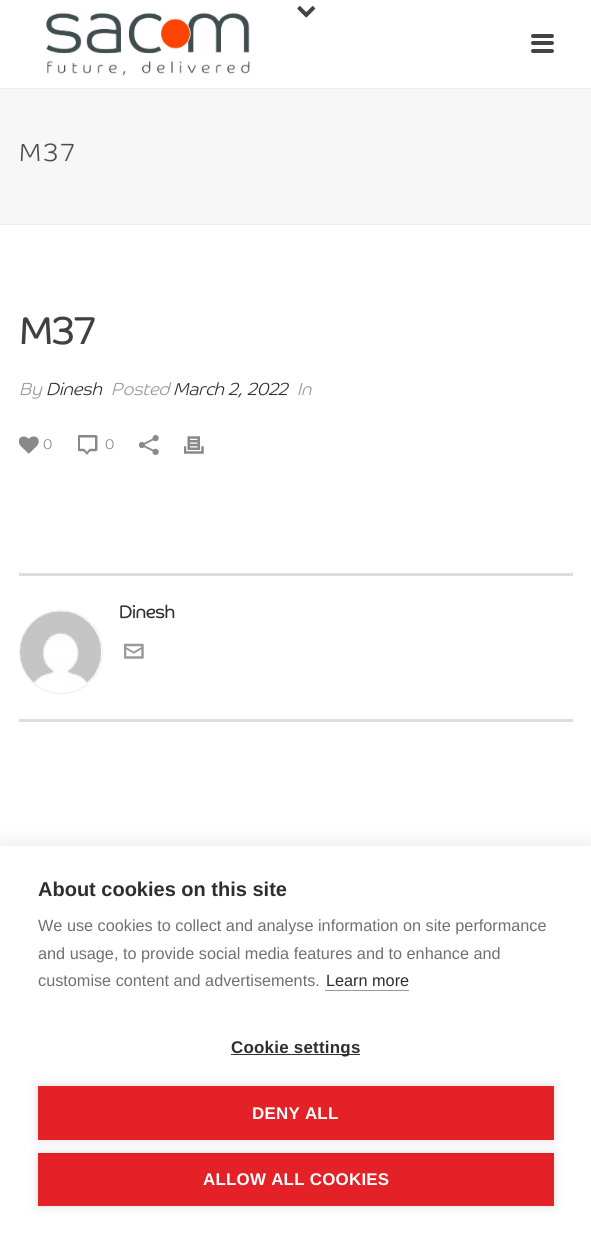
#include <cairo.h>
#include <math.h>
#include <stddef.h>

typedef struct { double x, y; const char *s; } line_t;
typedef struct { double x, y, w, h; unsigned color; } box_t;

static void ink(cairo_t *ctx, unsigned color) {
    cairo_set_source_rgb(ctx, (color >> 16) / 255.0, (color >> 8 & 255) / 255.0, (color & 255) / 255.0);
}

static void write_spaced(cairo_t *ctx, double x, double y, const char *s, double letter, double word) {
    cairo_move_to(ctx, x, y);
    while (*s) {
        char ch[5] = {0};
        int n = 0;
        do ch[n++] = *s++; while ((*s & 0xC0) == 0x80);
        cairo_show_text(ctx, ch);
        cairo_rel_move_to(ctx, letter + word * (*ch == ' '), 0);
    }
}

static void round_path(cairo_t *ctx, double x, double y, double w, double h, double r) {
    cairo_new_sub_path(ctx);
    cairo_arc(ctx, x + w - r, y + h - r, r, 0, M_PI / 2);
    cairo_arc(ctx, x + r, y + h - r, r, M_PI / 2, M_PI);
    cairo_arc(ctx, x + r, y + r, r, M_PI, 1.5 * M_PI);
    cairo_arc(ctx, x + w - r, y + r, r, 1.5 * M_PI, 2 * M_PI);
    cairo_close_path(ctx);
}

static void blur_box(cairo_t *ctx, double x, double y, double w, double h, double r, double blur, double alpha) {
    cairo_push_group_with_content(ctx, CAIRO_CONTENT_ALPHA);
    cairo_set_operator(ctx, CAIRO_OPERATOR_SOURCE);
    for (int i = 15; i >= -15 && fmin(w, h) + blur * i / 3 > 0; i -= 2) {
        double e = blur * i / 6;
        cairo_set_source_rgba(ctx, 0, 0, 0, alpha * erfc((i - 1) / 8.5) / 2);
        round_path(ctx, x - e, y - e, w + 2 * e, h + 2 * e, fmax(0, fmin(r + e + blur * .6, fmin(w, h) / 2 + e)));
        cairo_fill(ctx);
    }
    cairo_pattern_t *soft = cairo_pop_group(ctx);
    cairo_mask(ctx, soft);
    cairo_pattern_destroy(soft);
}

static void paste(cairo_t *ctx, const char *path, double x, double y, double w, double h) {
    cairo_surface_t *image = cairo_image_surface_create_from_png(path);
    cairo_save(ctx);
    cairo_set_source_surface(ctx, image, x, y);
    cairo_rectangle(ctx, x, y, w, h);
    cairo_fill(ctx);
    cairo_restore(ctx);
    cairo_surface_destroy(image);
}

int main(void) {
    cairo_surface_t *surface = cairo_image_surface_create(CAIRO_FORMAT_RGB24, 591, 1237);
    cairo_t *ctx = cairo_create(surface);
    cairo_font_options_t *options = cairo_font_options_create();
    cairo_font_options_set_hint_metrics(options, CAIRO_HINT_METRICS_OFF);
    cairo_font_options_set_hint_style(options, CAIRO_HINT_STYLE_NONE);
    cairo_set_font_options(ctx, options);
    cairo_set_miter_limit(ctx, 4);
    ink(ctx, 0xFFFFFF);
    cairo_paint(ctx);
    {
        static const box_t items[] = {
            {0, 89, 591, 135, 0xF7F7F7},
            {0, 224, 591, 1, 0xEDEDED},
            {0, 88, 591, 1, 0xEDEDED},
        };
        for (size_t i = 0; i < sizeof items / sizeof *items; i++) {
            ink(ctx, items[i].color);
            cairo_rectangle(ctx, items[i].x, items[i].y, items[i].w, items[i].h);
            cairo_fill(ctx);
        }
    }
    paste(ctx, "media/1.png", 297, 6, 19, 12);
    paste(ctx, "media/2.png", 46, 12, 204, 64);
    ink(ctx, 0x444444);
    round_path(ctx, 531, 34, 23, 4, 2);
    cairo_fill(ctx);
    round_path(ctx, 531, 41, 23, 4, 2);
    cairo_fill(ctx);
    round_path(ctx, 531, 49, 23, 4, 2);
    cairo_fill(ctx);
    cairo_select_font_face(ctx, "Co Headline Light", CAIRO_FONT_SLANT_NORMAL, CAIRO_FONT_WEIGHT_NORMAL);
    cairo_set_font_size(ctx, 25);
    ink(ctx, 0x4D4D4D);
    write_spaced(ctx, 19, 161, "M37", 2.5, 0);
    cairo_select_font_face(ctx, "Co Headline", CAIRO_FONT_SLANT_NORMAL, CAIRO_FONT_WEIGHT_BOLD);
    cairo_set_font_size(ctx, 37.5);
    ink(ctx, 0x404040);
    cairo_move_to(ctx, 19, 344);
    cairo_show_text(ctx, "M37");
    cairo_select_font_face(ctx, "Co Headline Light", CAIRO_FONT_SLANT_ITALIC, CAIRO_FONT_WEIGHT_NORMAL);
    cairo_set_font_size(ctx, 17.5);
    ink(ctx, 0x999999);
    cairo_move_to(ctx, 19, 395);
    cairo_show_text(ctx, "By");
    ink(ctx, 0x2E2E2E);
    cairo_move_to(ctx, 46, 395);
    cairo_show_text(ctx, "Dinesh");
    ink(ctx, 0x999999);
    cairo_move_to(ctx, 111, 395);
    cairo_show_text(ctx, "Posted");
    ink(ctx, 0x2E2E2E);
    cairo_move_to(ctx, 173, 395);
    cairo_show_text(ctx, "March 2, 2022");
    ink(ctx, 0x999999);
    cairo_move_to(ctx, 297, 395);
    cairo_show_text(ctx, "In");
    paste(ctx, "media/3.png", 19, 436, 20, 18);
    cairo_select_font_face(ctx, "Co Headline Light", CAIRO_FONT_SLANT_NORMAL, CAIRO_FONT_WEIGHT_NORMAL);
    cairo_set_font_size(ctx, 14);
    ink(ctx, 0x898989);
    cairo_move_to(ctx, 43, 449);
    cairo_show_text(ctx, "0");
    paste(ctx, "media/4.png", 78, 435, 20, 20);
    cairo_move_to(ctx, 105, 449);
    cairo_show_text(ctx, "0");
    paste(ctx, "media/5.png", 139, 435, 20, 20);
    paste(ctx, "media/6.png", 184, 436, 20, 18);
    ink(ctx, 0xDDDDDD);
    cairo_rectangle(ctx, 19, 573, 554, 3);
    cairo_fill(ctx);
    cairo_rectangle(ctx, 19, 719, 554, 3);
    cairo_fill(ctx);
    cairo_arc(ctx, 61, 652, 41.5, 0, 2 * M_PI);
    ink(ctx, 0xEEEEEE);
    cairo_set_line_width(ctx, 1);
    cairo_stroke(ctx);
    paste(ctx, "media/7.png", 20, 611, 81, 72);
    cairo_select_font_face(ctx, "Co Headline", CAIRO_FONT_SLANT_NORMAL, CAIRO_FONT_WEIGHT_BOLD);
    cairo_set_font_size(ctx, 17.5);
    ink(ctx, 0x2E2E2E);
    cairo_move_to(ctx, 119, 618);
    cairo_show_text(ctx, "Dinesh");
    paste(ctx, "media/8.png", 124, 643, 20, 16);
    ink(ctx, 0x000000);
    blur_box(ctx, 0, 846, 591, 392, 0, 12.5, 0.1);
    ink(ctx, 0xFFFFFF);
    cairo_rectangle(ctx, 0, 846, 591, 391);
    cairo_fill(ctx);
    cairo_select_font_face(ctx, "Liberation Sans", CAIRO_FONT_SLANT_NORMAL, CAIRO_FONT_WEIGHT_BOLD);
    cairo_set_font_size(ctx, 20);
    ink(ctx, 0x2E2E2E);
    cairo_move_to(ctx, 38, 896);
    cairo_show_text(ctx, "About cookies on this site");
    cairo_select_font_face(ctx, "Liberation Sans", CAIRO_FONT_SLANT_NORMAL, CAIRO_FONT_WEIGHT_NORMAL);
    cairo_set_font_size(ctx, 16.25);
    ink(ctx, 0x707070);
    {
        static const line_t items[] = {
            {38, 931, "We use cookies to collect and analyse information on site performance"},
            {38, 959, "and usage, to provide social media features and to enhance and"},
            {38, 986, "customise content and advertisements."},
        };
        for (size_t i = 0; i < sizeof items / sizeof *items; i++) {
            cairo_move_to(ctx, items[i].x, items[i].y);
            cairo_show_text(ctx, items[i].s);
        }
    }
    ink(ctx, 0x2E2E2E);
    cairo_move_to(ctx, 326, 986);
    cairo_show_text(ctx, "Learn more");
    ink(ctx, 0x999999);
    cairo_rectangle(ctx, 325, 990, 84, 1);
    cairo_fill(ctx);
    ink(ctx, 0x333333);
    cairo_rectangle(ctx, 231, 1054, 129, 1);
    cairo_fill(ctx);
    cairo_select_font_face(ctx, "Liberation Sans", CAIRO_FONT_SLANT_NORMAL, CAIRO_FONT_WEIGHT_BOLD);
    cairo_set_font_size(ctx, 16.9);
    ink(ctx, 0x2E2E2E);
    write_spaced(ctx, 231, 1053, "Cookie settings", 0.25, 0);
    ink(ctx, 0x000000);
    blur_box(ctx, 38, 1086, 516, 54, 0, 6, 0.12);
    ink(ctx, 0xE42127);
    cairo_rectangle(ctx, 38, 1086, 516, 54);
    cairo_fill(ctx);
    ink(ctx, 0xFFFFFF);
    write_spaced(ctx, 252, 1119, "DENY ALL", 0.25, 0);
    ink(ctx, 0x000000);
    blur_box(ctx, 38, 1153, 516, 53, 0, 6, 0.12);
    ink(ctx, 0xE42127);
    cairo_rectangle(ctx, 38, 1153, 516, 53);
    cairo_fill(ctx);
    ink(ctx, 0xFFFFFF);
    write_spaced(ctx, 203, 1185, "ALLOW ALL COOKIES", 0.25, 0);
    cairo_surface_write_to_png(surface, "image.png");
    cairo_font_options_destroy(options);
    cairo_destroy(ctx);
    cairo_surface_destroy(surface);
    return 0;
}
